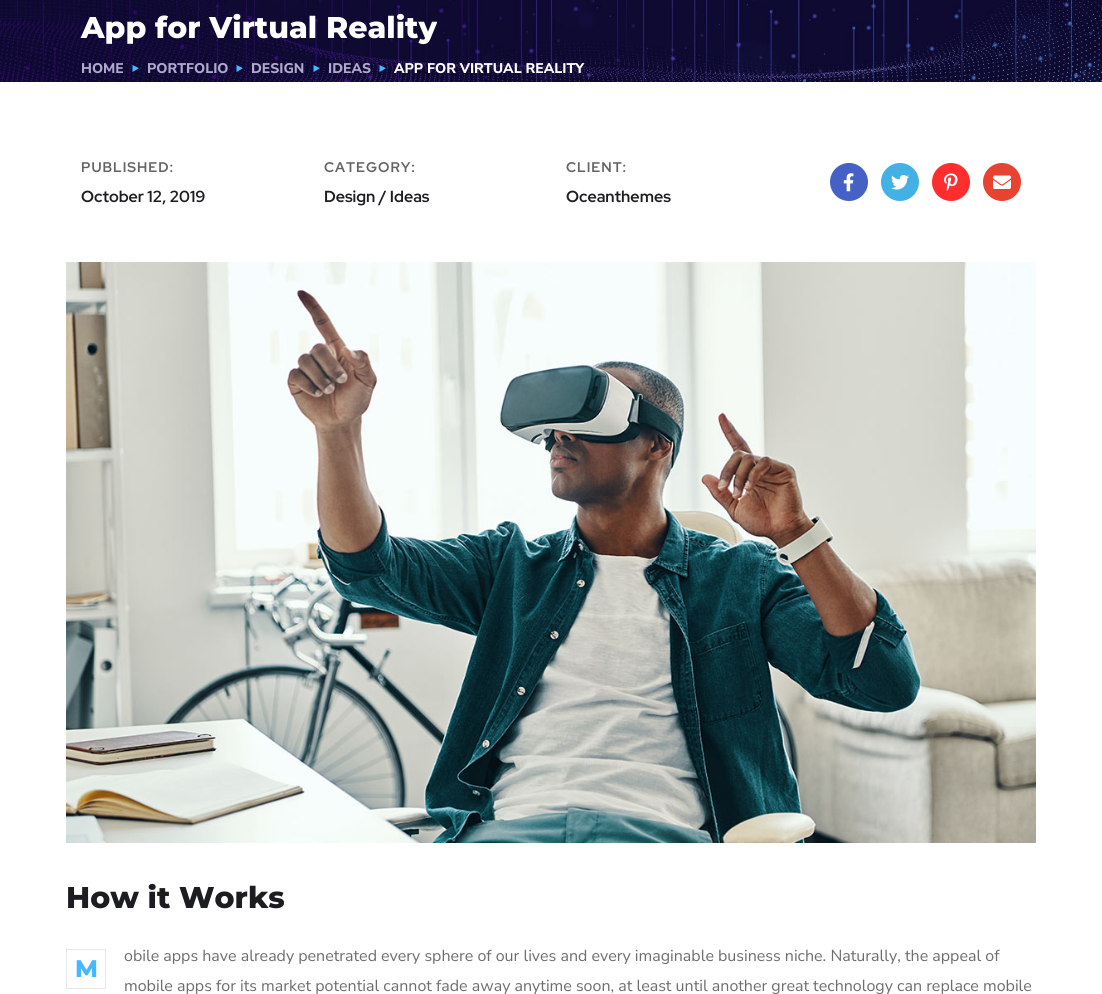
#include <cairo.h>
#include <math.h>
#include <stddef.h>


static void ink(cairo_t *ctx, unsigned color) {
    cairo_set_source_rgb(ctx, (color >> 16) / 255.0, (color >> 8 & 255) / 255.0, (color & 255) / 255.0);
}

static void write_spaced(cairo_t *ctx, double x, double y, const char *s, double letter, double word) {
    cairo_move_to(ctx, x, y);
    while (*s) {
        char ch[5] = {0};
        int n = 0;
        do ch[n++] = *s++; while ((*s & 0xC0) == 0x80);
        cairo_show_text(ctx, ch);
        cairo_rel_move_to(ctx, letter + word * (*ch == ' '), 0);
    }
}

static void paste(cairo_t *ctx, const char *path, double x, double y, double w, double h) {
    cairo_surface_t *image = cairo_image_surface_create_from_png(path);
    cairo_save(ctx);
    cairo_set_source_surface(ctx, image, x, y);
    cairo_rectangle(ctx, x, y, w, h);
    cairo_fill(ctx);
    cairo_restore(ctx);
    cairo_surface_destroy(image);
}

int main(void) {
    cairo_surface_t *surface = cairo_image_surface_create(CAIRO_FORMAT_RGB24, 1102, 994);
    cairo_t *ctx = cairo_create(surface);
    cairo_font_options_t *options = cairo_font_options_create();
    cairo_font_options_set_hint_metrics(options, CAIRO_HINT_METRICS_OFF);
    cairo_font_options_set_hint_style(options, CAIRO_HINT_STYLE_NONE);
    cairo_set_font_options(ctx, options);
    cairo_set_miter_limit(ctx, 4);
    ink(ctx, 0xFFFFFF);
    cairo_paint(ctx);
    paste(ctx, "media/1.png", 0, 0, 1102, 82);
    cairo_select_font_face(ctx, "Montserrat ExtraBold", CAIRO_FONT_SLANT_NORMAL, CAIRO_FONT_WEIGHT_NORMAL);
    cairo_set_font_size(ctx, 30);
    ink(ctx, 0xFFFFFF);
    cairo_move_to(ctx, 81, 38);
    cairo_show_text(ctx, "App for Virtual Reality");
    cairo_select_font_face(ctx, "Nunito Sans ExtraBold", CAIRO_FONT_SLANT_NORMAL, CAIRO_FONT_WEIGHT_NORMAL);
    cairo_set_font_size(ctx, 14);
    ink(ctx, 0xAEAACB);
    cairo_move_to(ctx, 81, 73);
    cairo_show_text(ctx, "HOME");
    ink(ctx, 0x43BAFF);
    cairo_new_path(ctx);
    cairo_move_to(ctx, 138.5, 68);
    cairo_line_to(ctx, 138.5, 68.5);
    cairo_line_to(ctx, 132.5, 72);
    cairo_line_to(ctx, 132.5, 65);
    cairo_close_path(ctx);
    cairo_fill(ctx);
    ink(ctx, 0xAEAACB);
    cairo_move_to(ctx, 147, 73);
    cairo_show_text(ctx, "PORTFOLIO");
    ink(ctx, 0x43BAFF);
    cairo_new_path(ctx);
    cairo_move_to(ctx, 242.5, 68);
    cairo_line_to(ctx, 242.5, 68.5);
    cairo_line_to(ctx, 236.5, 72);
    cairo_line_to(ctx, 236.5, 65);
    cairo_close_path(ctx);
    cairo_fill(ctx);
    ink(ctx, 0xAEAACB);
    cairo_move_to(ctx, 251, 73);
    cairo_show_text(ctx, "DESIGN");
    ink(ctx, 0x43BAFF);
    cairo_new_path(ctx);
    cairo_move_to(ctx, 319.5, 68);
    cairo_line_to(ctx, 319.5, 68.5);
    cairo_line_to(ctx, 313.5, 72);
    cairo_line_to(ctx, 313.5, 65);
    cairo_close_path(ctx);
    cairo_fill(ctx);
    ink(ctx, 0xAEAACB);
    cairo_move_to(ctx, 328, 73);
    cairo_show_text(ctx, "IDEAS");
    ink(ctx, 0x43BAFF);
    cairo_new_path(ctx);
    cairo_move_to(ctx, 385.5, 68);
    cairo_line_to(ctx, 385.5, 68.5);
    cairo_line_to(ctx, 379.5, 72);
    cairo_line_to(ctx, 379.5, 65);
    cairo_close_path(ctx);
    cairo_fill(ctx);
    ink(ctx, 0xFFFFFF);
    cairo_move_to(ctx, 394, 73);
    cairo_show_text(ctx, "APP FOR VIRTUAL REALITY");
    cairo_select_font_face(ctx, "Red Hat Display", CAIRO_FONT_SLANT_NORMAL, CAIRO_FONT_WEIGHT_BOLD);
    ink(ctx, 0x636363);
    write_spaced(ctx, 81, 172, "PUBLISHED:", 1, 0);
    cairo_set_font_size(ctx, 16);
    ink(ctx, 0x1B1D21);
    cairo_move_to(ctx, 81, 202);
    cairo_show_text(ctx, "October 12, 2019");
    cairo_set_font_size(ctx, 14);
    ink(ctx, 0x636363);
    write_spaced(ctx, 324, 172, "CATEGORY:", 1, 0);
    cairo_set_font_size(ctx, 16);
    ink(ctx, 0x1B1D21);
    cairo_move_to(ctx, 324, 202);
    cairo_show_text(ctx, "Design / Ideas");
    cairo_set_font_size(ctx, 14);
    ink(ctx, 0x636363);
    write_spaced(ctx, 566, 172, "CLIENT:", 1, 0);
    cairo_set_font_size(ctx, 16);
    ink(ctx, 0x1B1D21);
    cairo_move_to(ctx, 566, 202);
    cairo_show_text(ctx, "Oceanthemes");
    ink(ctx, 0x4661C5);
    cairo_new_path(ctx);
    cairo_arc(ctx, 849, 182, 19, 0, 2 * M_PI);
    cairo_fill(ctx);
    paste(ctx, "media/2.png", 843, 173, 11, 19);
    ink(ctx, 0x44B1E4);
    cairo_arc(ctx, 900, 182, 19, 0, 2 * M_PI);
    cairo_fill(ctx);
    paste(ctx, "media/3.png", 891, 174, 18, 16);
    ink(ctx, 0xFF2E2E);
    cairo_arc(ctx, 951, 182, 19, 0, 2 * M_PI);
    cairo_fill(ctx);
    paste(ctx, "media/4.png", 944, 173, 14, 18);
    ink(ctx, 0xE84231);
    cairo_arc(ctx, 1002, 182, 19, 0, 2 * M_PI);
    cairo_fill(ctx);
    paste(ctx, "media/5.png", 993, 175, 18, 14);
    paste(ctx, "media/6.png", 66, 262, 970, 581);
    cairo_select_font_face(ctx, "Montserrat ExtraBold", CAIRO_FONT_SLANT_NORMAL, CAIRO_FONT_WEIGHT_NORMAL);
    cairo_set_font_size(ctx, 30);
    ink(ctx, 0x1B1D21);
    cairo_move_to(ctx, 66, 908);
    cairo_show_text(ctx, "How it Works");
    cairo_select_font_face(ctx, "Nunito Sans", CAIRO_FONT_SLANT_NORMAL, CAIRO_FONT_WEIGHT_NORMAL);
    cairo_set_font_size(ctx, 16);
    ink(ctx, 0x6D6D6D);
    cairo_move_to(ctx, 124, 961);
    cairo_show_text(ctx, "obile apps have already penetrated every sphere of our lives and every imaginable business niche. Naturally, the appeal of");
    cairo_rectangle(ctx, 66.5, 949.5, 39, 39);
    ink(ctx, 0xE7E7E7);
    cairo_set_line_width(ctx, 1);
    cairo_stroke(ctx);
    cairo_select_font_face(ctx, "Montserrat ExtraBold", CAIRO_FONT_SLANT_NORMAL, CAIRO_FONT_WEIGHT_NORMAL);
    cairo_set_font_size(ctx, 24);
    ink(ctx, 0x43BAFF);
    cairo_move_to(ctx, 75, 977);
    cairo_show_text(ctx, "M");
    cairo_select_font_face(ctx, "Nunito Sans", CAIRO_FONT_SLANT_NORMAL, CAIRO_FONT_WEIGHT_NORMAL);
    cairo_set_font_size(ctx, 16);
    ink(ctx, 0x6D6D6D);
    cairo_move_to(ctx, 124, 991);
    cairo_show_text(ctx, "mobile apps for its market potential cannot fade away anytime soon, at least until another great technology can replace mobile");
    cairo_surface_write_to_png(surface, "image.png");
    cairo_font_options_destroy(options);
    cairo_destroy(ctx);
    cairo_surface_destroy(surface);
    return 0;
}
